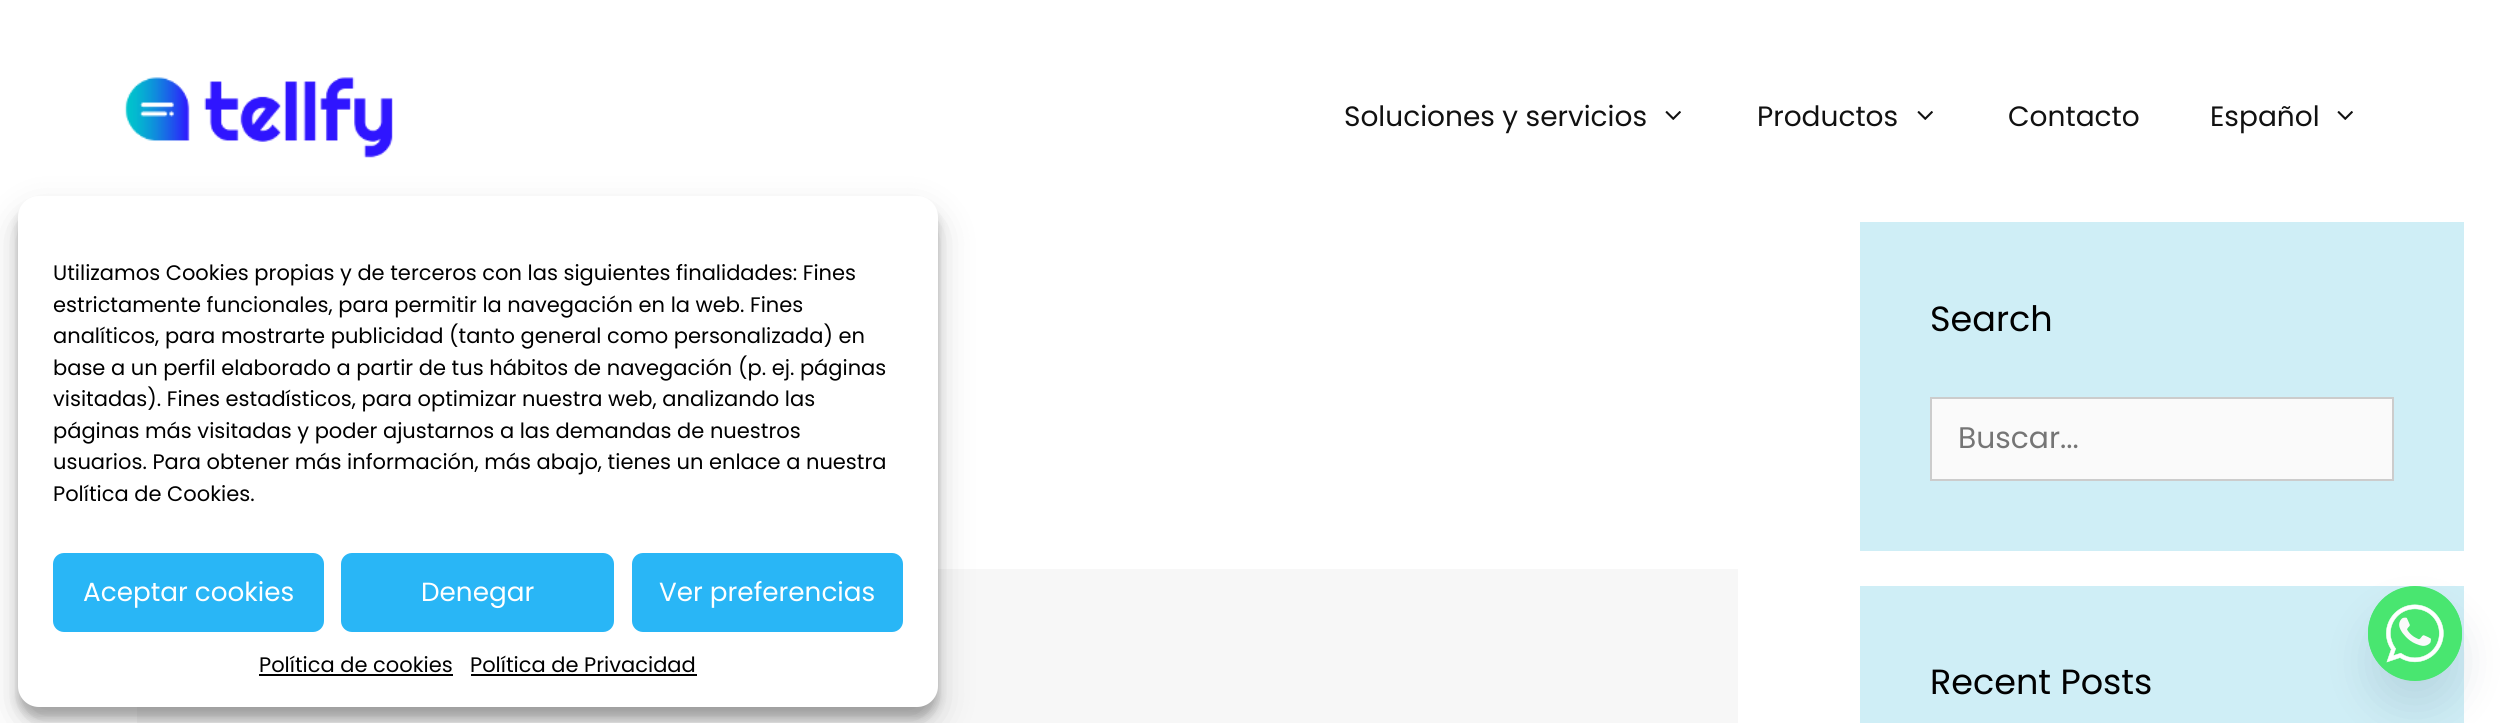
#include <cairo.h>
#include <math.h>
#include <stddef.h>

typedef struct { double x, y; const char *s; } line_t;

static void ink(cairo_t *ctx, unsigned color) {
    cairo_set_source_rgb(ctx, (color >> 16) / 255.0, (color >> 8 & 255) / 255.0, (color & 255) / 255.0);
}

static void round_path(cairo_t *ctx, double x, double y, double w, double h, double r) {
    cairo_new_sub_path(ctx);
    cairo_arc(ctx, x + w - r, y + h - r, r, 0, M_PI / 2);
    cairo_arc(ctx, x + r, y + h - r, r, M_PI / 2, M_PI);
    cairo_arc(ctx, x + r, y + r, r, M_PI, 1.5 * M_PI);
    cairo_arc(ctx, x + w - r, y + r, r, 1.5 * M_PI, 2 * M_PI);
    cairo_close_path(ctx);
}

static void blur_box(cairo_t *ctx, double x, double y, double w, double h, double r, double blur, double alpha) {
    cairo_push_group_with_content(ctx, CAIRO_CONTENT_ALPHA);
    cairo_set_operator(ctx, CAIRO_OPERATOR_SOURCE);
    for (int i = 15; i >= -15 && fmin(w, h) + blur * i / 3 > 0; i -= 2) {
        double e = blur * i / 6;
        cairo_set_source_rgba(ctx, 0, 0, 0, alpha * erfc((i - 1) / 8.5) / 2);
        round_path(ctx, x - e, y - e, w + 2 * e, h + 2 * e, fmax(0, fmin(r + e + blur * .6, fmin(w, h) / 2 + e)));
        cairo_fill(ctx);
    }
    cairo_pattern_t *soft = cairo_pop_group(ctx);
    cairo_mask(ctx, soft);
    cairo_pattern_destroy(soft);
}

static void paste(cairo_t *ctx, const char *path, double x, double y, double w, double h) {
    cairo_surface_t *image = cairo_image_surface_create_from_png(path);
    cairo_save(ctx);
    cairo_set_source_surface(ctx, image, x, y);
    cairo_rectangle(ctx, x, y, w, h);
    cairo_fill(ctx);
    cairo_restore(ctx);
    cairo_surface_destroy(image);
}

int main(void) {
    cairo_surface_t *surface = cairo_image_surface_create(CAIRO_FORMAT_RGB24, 2513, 723);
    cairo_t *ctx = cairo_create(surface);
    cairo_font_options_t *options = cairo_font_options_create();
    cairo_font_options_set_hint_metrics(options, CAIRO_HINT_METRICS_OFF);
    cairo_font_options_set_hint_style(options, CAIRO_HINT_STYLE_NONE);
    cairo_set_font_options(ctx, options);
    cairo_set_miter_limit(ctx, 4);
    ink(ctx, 0xFFFFFF);
    cairo_paint(ctx);
    paste(ctx, "media/1.png", 124, 77, 269, 81);
    cairo_select_font_face(ctx, "Poppins", CAIRO_FONT_SLANT_NORMAL, CAIRO_FONT_WEIGHT_NORMAL);
    cairo_set_font_size(ctx, 28);
    ink(ctx, 0x111111);
    cairo_move_to(ctx, 1344, 126);
    cairo_show_text(ctx, "Soluciones y servicios");
    paste(ctx, "media/2.png", 1665, 111, 16, 9);
    cairo_move_to(ctx, 1757, 126);
    cairo_show_text(ctx, "Productos");
    paste(ctx, "media/2.png", 1917, 111, 16, 9);
    cairo_move_to(ctx, 2008, 126);
    cairo_show_text(ctx, "Contacto");
    cairo_move_to(ctx, 2210, 126);
    cairo_show_text(ctx, "Español");
    paste(ctx, "media/2.png", 2337, 111, 16, 9);
    ink(ctx, 0xF7F7F7);
    cairo_rectangle(ctx, 137, 569, 1601, 154);
    cairo_fill(ctx);
    ink(ctx, 0x000000);
    blur_box(ctx, 18, 207, 920, 511, 21, 5, 0.23);
    blur_box(ctx, 18, 214, 920, 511, 21, 17.5, 0.19);
    ink(ctx, 0xFFFFFF);
    round_path(ctx, 18, 196, 920, 511, 21);
    cairo_fill(ctx);
    cairo_set_font_size(ctx, 21);
    ink(ctx, 0x000000);
    {
        static const line_t items[] = {
            {53, 280, "Utilizamos Cookies propias y de terceros con las siguientes finalidades: Fines"},
            {53, 312, "estrictamente funcionales, para permitir la navegación en la web. Fines"},
            {53, 343, "analíticos, para mostrarte publicidad (tanto general como personalizada) en"},
            {53, 375, "base a un perfil elaborado a partir de tus hábitos de navegación (p. ej. páginas"},
            {53, 406, "visitadas). Fines estadísticos, para optimizar nuestra web, analizando las"},
            {53, 438, "páginas más visitadas y poder ajustarnos a las demandas de nuestros"},
            {53, 469, "usuarios. Para obtener más información, más abajo, tienes un enlace a nuestra"},
            {53, 501, "Política de Cookies."},
        };
        for (size_t i = 0; i < sizeof items / sizeof *items; i++) {
            cairo_move_to(ctx, items[i].x, items[i].y);
            cairo_show_text(ctx, items[i].s);
        }
    }
    ink(ctx, 0x29B6F6);
    round_path(ctx, 54, 554, 269, 77, 10);
    cairo_fill_preserve(ctx);
    cairo_stroke(ctx);
    cairo_set_font_size(ctx, 26.25);
    ink(ctx, 0xFFFFFF);
    cairo_move_to(ctx, 83, 601);
    cairo_show_text(ctx, "Aceptar cookies");
    ink(ctx, 0x29B6F6);
    round_path(ctx, 342, 554, 271, 77, 10);
    cairo_fill_preserve(ctx);
    cairo_stroke(ctx);
    ink(ctx, 0xFFFFFF);
    cairo_move_to(ctx, 421, 601);
    cairo_show_text(ctx, "Denegar");
    ink(ctx, 0x29B6F6);
    round_path(ctx, 633, 554, 269, 77, 10);
    cairo_fill_preserve(ctx);
    cairo_stroke(ctx);
    ink(ctx, 0xFFFFFF);
    cairo_move_to(ctx, 659, 601);
    cairo_show_text(ctx, "Ver preferencias");
    cairo_set_font_size(ctx, 21);
    ink(ctx, 0x000000);
    cairo_move_to(ctx, 259, 672);
    cairo_show_text(ctx, "Política de cookies");
    cairo_rectangle(ctx, 259, 674, 194, 2);
    cairo_fill(ctx);
    cairo_move_to(ctx, 470, 672);
    cairo_show_text(ctx, "Política de Privacidad");
    cairo_rectangle(ctx, 471, 674, 226, 2);
    cairo_fill(ctx);
    ink(ctx, 0xCFEEF6);
    cairo_rectangle(ctx, 1860, 222, 604, 329);
    cairo_fill(ctx);
    cairo_set_font_size(ctx, 35);
    ink(ctx, 0x000000);
    cairo_move_to(ctx, 1930, 331);
    cairo_show_text(ctx, "Search");
    ink(ctx, 0xFAFAFA);
    cairo_rectangle(ctx, 1931, 398, 462, 82);
    cairo_fill_preserve(ctx);
    ink(ctx, 0xCCCCCC);
    cairo_stroke(ctx);
    cairo_set_font_size(ctx, 29.75);
    ink(ctx, 0x757575);
    cairo_move_to(ctx, 1958, 448);
    cairo_show_text(ctx, "Buscar...");
    ink(ctx, 0xCFEEF6);
    cairo_rectangle(ctx, 1860, 586, 604, 137);
    cairo_fill(ctx);
    cairo_set_font_size(ctx, 35);
    ink(ctx, 0x000000);
    cairo_move_to(ctx, 1930, 694);
    cairo_show_text(ctx, "Recent Posts");
    ink(ctx, 0x49687E);
    blur_box(ctx, 2368, 614, 94, 95, 47, 21, 0.16);
    ink(ctx, 0x49E670);
    round_path(ctx, 2368, 586, 94, 95, 47);
    cairo_fill(ctx);
    paste(ctx, "media/3.png", 2368, 586, 94, 95);
    cairo_surface_write_to_png(surface, "image.png");
    cairo_font_options_destroy(options);
    cairo_destroy(ctx);
    cairo_surface_destroy(surface);
    return 0;
}
